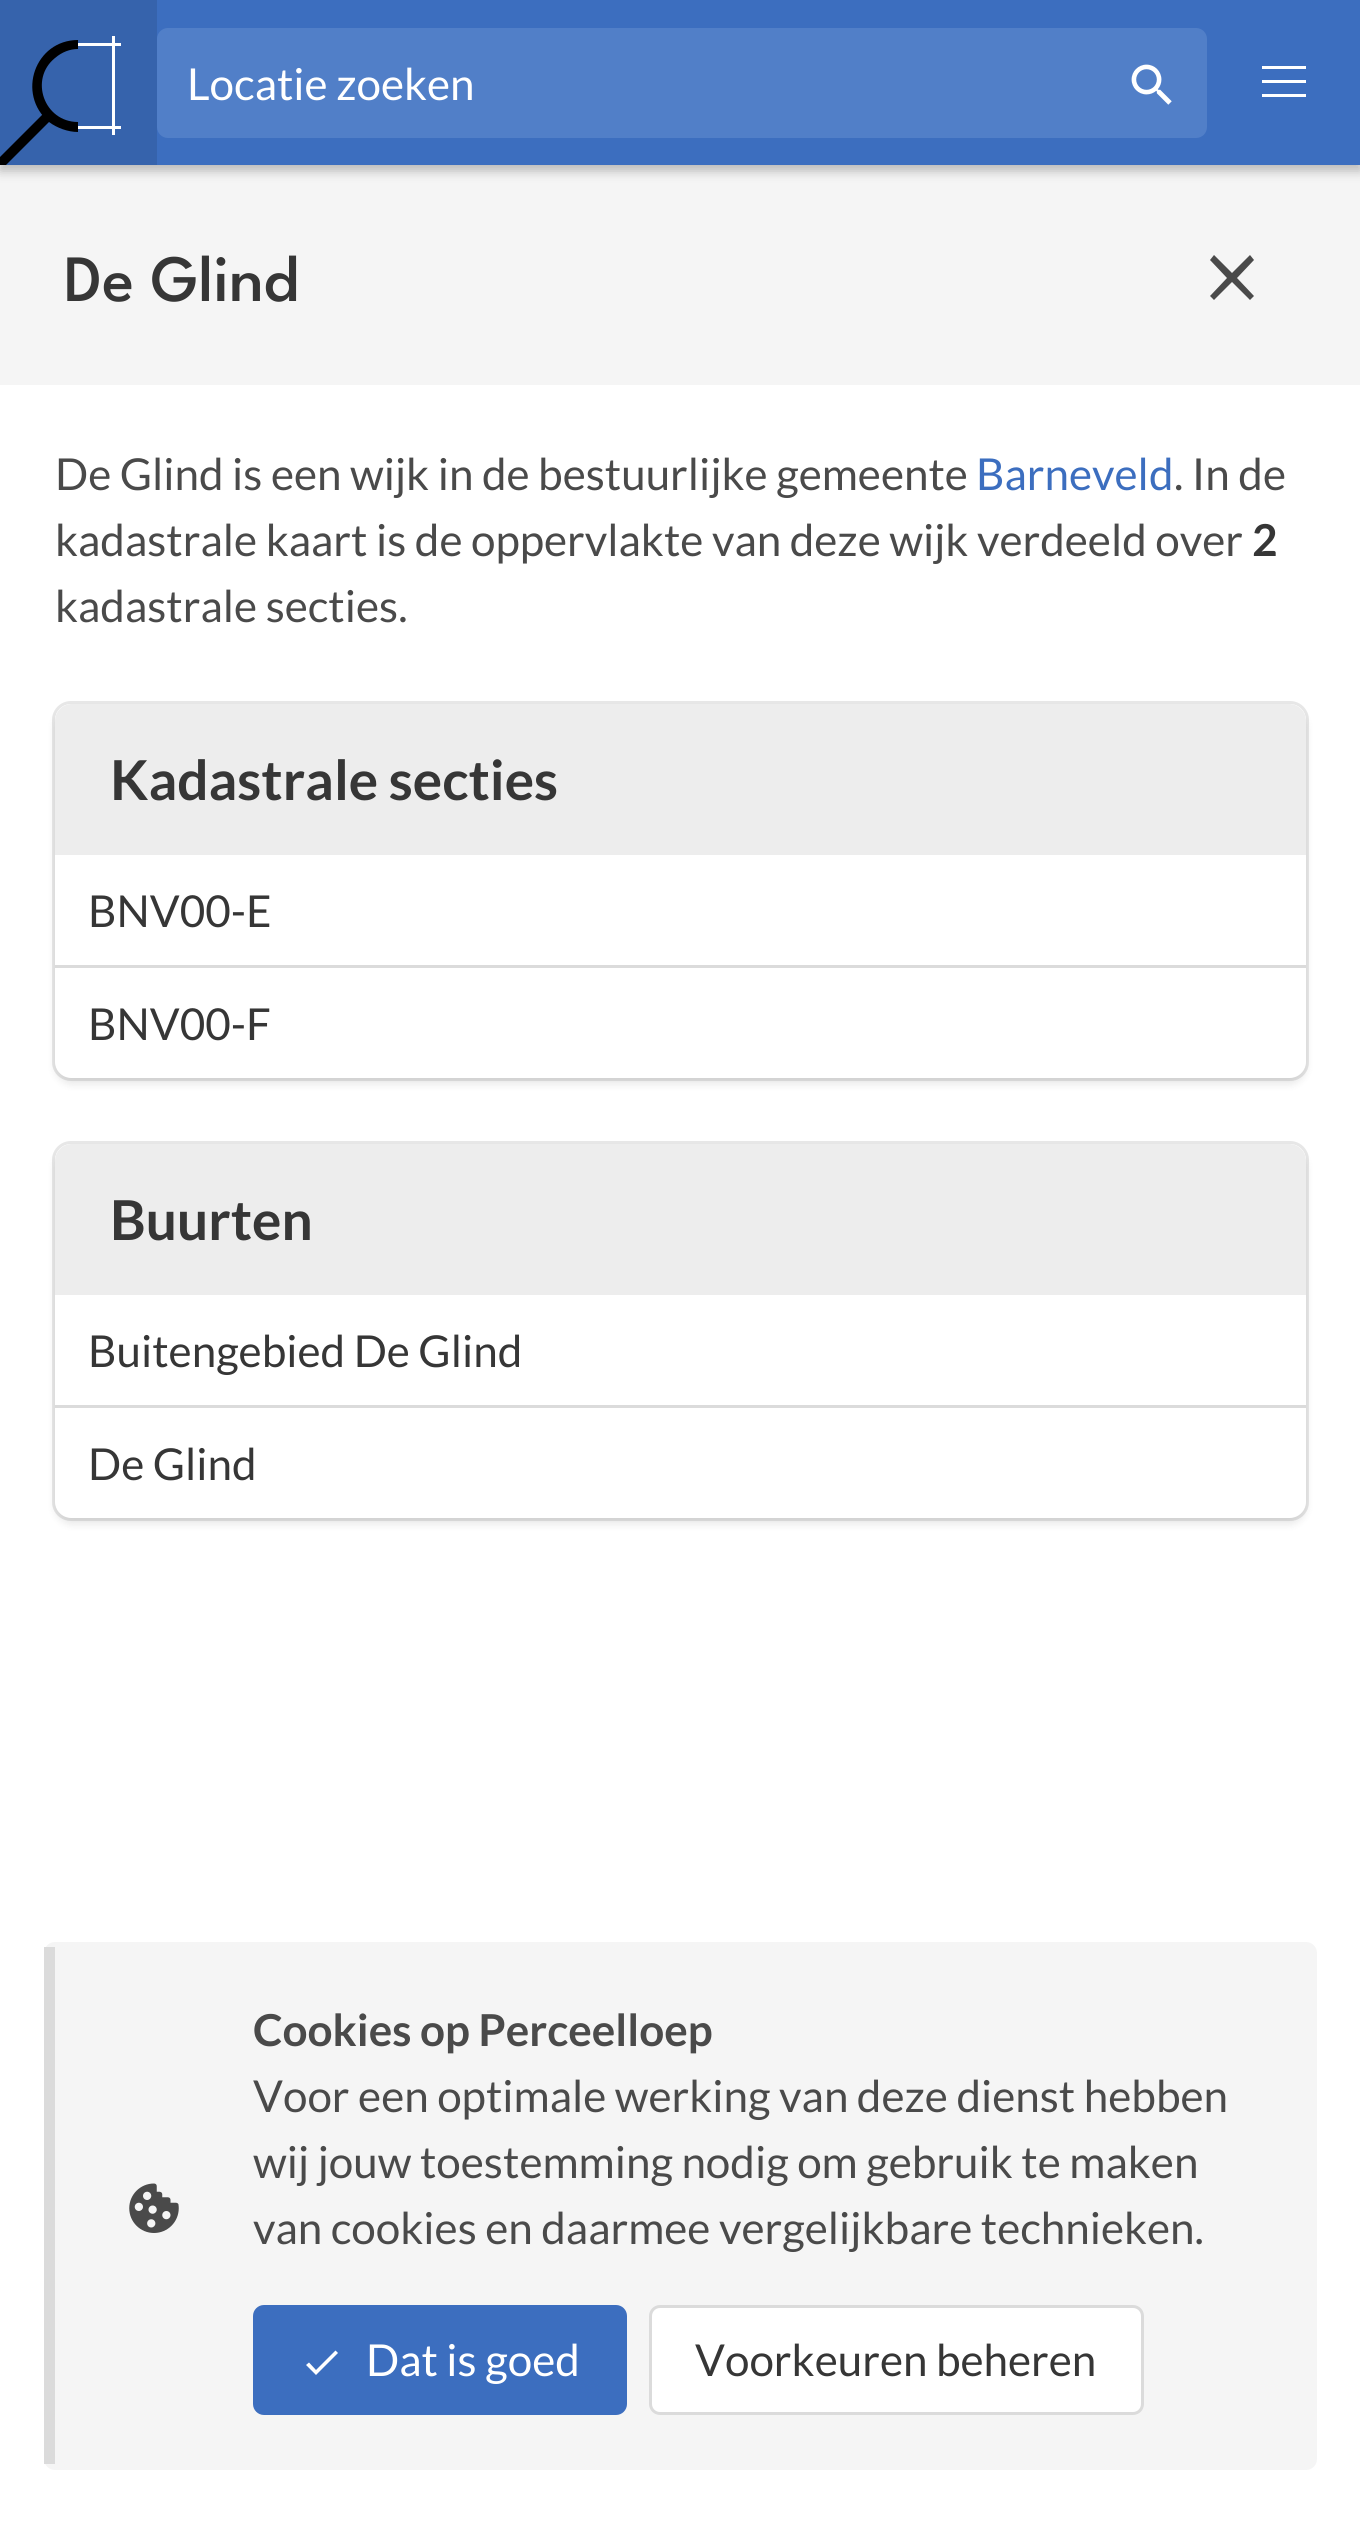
#include <cairo.h>
#include <math.h>
#include <stddef.h>

typedef struct { double x, y; const char *s; } line_t;
typedef struct { double x, y, w, h; unsigned color; } box_t;

static void ink(cairo_t *ctx, unsigned color) {
    cairo_set_source_rgb(ctx, (color >> 16) / 255.0, (color >> 8 & 255) / 255.0, (color & 255) / 255.0);
}

static void round_path(cairo_t *ctx, double x, double y, double w, double h, double r) {
    cairo_new_sub_path(ctx);
    cairo_arc(ctx, x + w - r, y + h - r, r, 0, M_PI / 2);
    cairo_arc(ctx, x + r, y + h - r, r, M_PI / 2, M_PI);
    cairo_arc(ctx, x + r, y + r, r, M_PI, 1.5 * M_PI);
    cairo_arc(ctx, x + w - r, y + r, r, 1.5 * M_PI, 2 * M_PI);
    cairo_close_path(ctx);
}

static void blur_box(cairo_t *ctx, double x, double y, double w, double h, double r, double blur, double alpha) {
    cairo_push_group_with_content(ctx, CAIRO_CONTENT_ALPHA);
    cairo_set_operator(ctx, CAIRO_OPERATOR_SOURCE);
    for (int i = 15; i >= -15 && fmin(w, h) + blur * i / 3 > 0; i -= 2) {
        double e = blur * i / 6;
        cairo_set_source_rgba(ctx, 0, 0, 0, alpha * erfc((i - 1) / 8.5) / 2);
        round_path(ctx, x - e, y - e, w + 2 * e, h + 2 * e, fmax(0, fmin(r + e + blur * .6, fmin(w, h) / 2 + e)));
        cairo_fill(ctx);
    }
    cairo_pattern_t *soft = cairo_pop_group(ctx);
    cairo_mask(ctx, soft);
    cairo_pattern_destroy(soft);
}

static void paste(cairo_t *ctx, const char *path, double x, double y, double w, double h) {
    cairo_surface_t *image = cairo_image_surface_create_from_png(path);
    cairo_save(ctx);
    cairo_set_source_surface(ctx, image, x, y);
    cairo_rectangle(ctx, x, y, w, h);
    cairo_fill(ctx);
    cairo_restore(ctx);
    cairo_surface_destroy(image);
}

int main(void) {
    cairo_surface_t *surface = cairo_image_surface_create(CAIRO_FORMAT_RGB24, 1360, 2534);
    cairo_t *ctx = cairo_create(surface);
    cairo_font_options_t *options = cairo_font_options_create();
    cairo_font_options_set_hint_metrics(options, CAIRO_HINT_METRICS_OFF);
    cairo_font_options_set_hint_style(options, CAIRO_HINT_STYLE_NONE);
    cairo_set_font_options(ctx, options);
    cairo_set_miter_limit(ctx, 4);
    ink(ctx, 0xFFFFFF);
    cairo_paint(ctx);
    ink(ctx, 0xF5F5F5);
    cairo_rectangle(ctx, 0, 165, 1360, 220);
    cairo_fill(ctx);
    ink(ctx, 0x000000);
    blur_box(ctx, 0, 6, 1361, 165, 0, 5.5, 0.25);
    {
        static const box_t items[] = {
            {157, 0, 1203, 165, 0x3C6EBF},
            {0, 0, 157, 165, 0x3663AC},
            {78, 43, 43, 3, 0xFFFFFF},
            {78, 126, 43, 3, 0xFFFFFF},
            {112, 36, 3, 99, 0xFFFFFF},
        };
        for (size_t i = 0; i < sizeof items / sizeof *items; i++) {
            ink(ctx, items[i].color);
            cairo_rectangle(ctx, items[i].x, items[i].y, items[i].w, items[i].h);
            cairo_fill(ctx);
        }
    }
    ink(ctx, 0x000000);
    cairo_new_path(ctx);
    cairo_move_to(ctx, 78, 132);
    cairo_curve_to(ctx, 68, 132, 57, 128, 49, 122);
    cairo_curve_to(ctx, 16, 94, 35, 40, 78, 40);
    cairo_line_to(ctx, 78, 49);
    cairo_curve_to(ctx, 70, 49, 62, 52, 55, 58);
    cairo_curve_to(ctx, 29, 79, 44, 122, 78, 122);
    cairo_close_path(ctx);
    cairo_fill(ctx);
    cairo_new_path(ctx);
    cairo_move_to(ctx, -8, 165);
    cairo_line_to(ctx, 46, 111);
    cairo_line_to(ctx, 53, 118);
    cairo_line_to(ctx, 6, 165);
    cairo_close_path(ctx);
    cairo_fill(ctx);
    ink(ctx, 0x517FC8);
    round_path(ctx, 157, 28, 1050, 110, 11);
    cairo_fill(ctx);
    cairo_select_font_face(ctx, "Lato", CAIRO_FONT_SLANT_NORMAL, CAIRO_FONT_WEIGHT_NORMAL);
    cairo_set_font_size(ctx, 44);
    ink(ctx, 0xFFFFFF);
    cairo_move_to(ctx, 187, 100);
    cairo_show_text(ctx, "Locatie zoeken");
    paste(ctx, "media/1.png", 1131, 64, 41, 41);
    {
        static const box_t items[] = {
            {1262, 66, 44, 3, 0xFFFFFF},
            {1262, 80, 44, 3, 0xFFFFFF},
            {1262, 94, 44, 3, 0xFFFFFF},
        };
        for (size_t i = 0; i < sizeof items / sizeof *items; i++) {
            ink(ctx, items[i].color);
            cairo_rectangle(ctx, items[i].x, items[i].y, items[i].w, items[i].h);
            cairo_fill(ctx);
        }
    }
    cairo_select_font_face(ctx, "League Spartan Thin", CAIRO_FONT_SLANT_NORMAL, CAIRO_FONT_WEIGHT_NORMAL);
    cairo_set_font_size(ctx, 66);
    ink(ctx, 0x363636);
    cairo_move_to(ctx, 64, 301);
    cairo_show_text(ctx, "De Glind");
    ink(ctx, 0x4A4A4A);
    cairo_new_path(ctx);
    cairo_move_to(ctx, 1254, 260);
    cairo_line_to(ctx, 1250, 255);
    cairo_line_to(ctx, 1232, 273);
    cairo_line_to(ctx, 1214, 255);
    cairo_line_to(ctx, 1210, 260);
    cairo_line_to(ctx, 1227, 278);
    cairo_line_to(ctx, 1210, 296);
    cairo_line_to(ctx, 1214, 300);
    cairo_line_to(ctx, 1232, 282);
    cairo_line_to(ctx, 1250, 300);
    cairo_line_to(ctx, 1254, 296);
    cairo_line_to(ctx, 1237, 278);
    cairo_close_path(ctx);
    cairo_fill(ctx);
    cairo_select_font_face(ctx, "Lato", CAIRO_FONT_SLANT_NORMAL, CAIRO_FONT_WEIGHT_NORMAL);
    cairo_set_font_size(ctx, 44);
    cairo_move_to(ctx, 55, 490);
    cairo_show_text(ctx, "De Glind is een wijk in de bestuurlijke gemeente");
    ink(ctx, 0x3C6EBF);
    cairo_move_to(ctx, 976, 490);
    cairo_show_text(ctx, "Barneveld");
    ink(ctx, 0x4A4A4A);
    cairo_move_to(ctx, 1174, 490);
    cairo_show_text(ctx, ". In de");
    cairo_move_to(ctx, 55, 556);
    cairo_show_text(ctx, "kadastrale kaart is de oppervlakte van deze wijk verdeeld over");
    cairo_select_font_face(ctx, "Lato", CAIRO_FONT_SLANT_NORMAL, CAIRO_FONT_WEIGHT_BOLD);
    ink(ctx, 0x363636);
    cairo_move_to(ctx, 1252, 556);
    cairo_show_text(ctx, "2");
    cairo_select_font_face(ctx, "Lato", CAIRO_FONT_SLANT_NORMAL, CAIRO_FONT_WEIGHT_NORMAL);
    ink(ctx, 0x4A4A4A);
    cairo_move_to(ctx, 55, 622);
    cairo_show_text(ctx, "kadastrale secties.");
    round_path(ctx, 53.5, 702.5, 1254, 377, 17.5);
    ink(ctx, 0xE7E7E7);
    cairo_set_line_width(ctx, 3);
    cairo_stroke(ctx);
    cairo_save(ctx);
    cairo_set_fill_rule(ctx, CAIRO_FILL_RULE_EVEN_ODD);
    cairo_new_path(ctx);
    cairo_move_to(ctx, 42, 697);
    cairo_line_to(ctx, 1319, 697);
    cairo_line_to(ctx, 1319, 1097);
    cairo_line_to(ctx, 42, 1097);
    cairo_close_path(ctx);
    cairo_move_to(ctx, 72, 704);
    cairo_line_to(ctx, 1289, 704);
    cairo_curve_to(ctx, 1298.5, 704, 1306, 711.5, 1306, 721);
    cairo_line_to(ctx, 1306, 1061);
    cairo_curve_to(ctx, 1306, 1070.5, 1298.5, 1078, 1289, 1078);
    cairo_line_to(ctx, 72, 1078);
    cairo_curve_to(ctx, 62.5, 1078, 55, 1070.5, 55, 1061);
    cairo_line_to(ctx, 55, 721);
    cairo_curve_to(ctx, 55, 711.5, 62.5, 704, 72, 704);
    cairo_close_path(ctx);
    cairo_clip(ctx);
    ink(ctx, 0x0A0A0A);
    blur_box(ctx, 55, 710, 1251, 374, 17, 4, 0.1);
    cairo_restore(ctx);
    ink(ctx, 0xEDEDED);
    cairo_new_path(ctx);
    cairo_move_to(ctx, 72, 704);
    cairo_line_to(ctx, 1289, 704);
    cairo_curve_to(ctx, 1298.5, 704, 1306, 711.5, 1306, 721);
    cairo_line_to(ctx, 1306, 855);
    cairo_line_to(ctx, 55, 855);
    cairo_line_to(ctx, 55, 721);
    cairo_curve_to(ctx, 55, 711.5, 62.5, 704, 72, 704);
    cairo_close_path(ctx);
    cairo_fill(ctx);
    cairo_select_font_face(ctx, "Lato", CAIRO_FONT_SLANT_NORMAL, CAIRO_FONT_WEIGHT_BOLD);
    cairo_set_font_size(ctx, 55);
    ink(ctx, 0x363636);
    cairo_move_to(ctx, 110, 800);
    cairo_show_text(ctx, "Kadastrale secties");
    ink(ctx, 0xDBDBDB);
    cairo_rectangle(ctx, 55, 965, 1251, 3);
    cairo_fill(ctx);
    cairo_select_font_face(ctx, "Lato", CAIRO_FONT_SLANT_NORMAL, CAIRO_FONT_WEIGHT_NORMAL);
    cairo_set_font_size(ctx, 44);
    ink(ctx, 0x363636);
    cairo_move_to(ctx, 88, 927);
    cairo_show_text(ctx, "BNV00-E");
    cairo_move_to(ctx, 88, 1040);
    cairo_show_text(ctx, "BNV00-F");
    round_path(ctx, 53.5, 1142.5, 1254, 377, 17.5);
    ink(ctx, 0xE7E7E7);
    cairo_stroke(ctx);
    cairo_save(ctx);
    cairo_set_fill_rule(ctx, CAIRO_FILL_RULE_EVEN_ODD);
    cairo_new_path(ctx);
    cairo_move_to(ctx, 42, 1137);
    cairo_line_to(ctx, 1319, 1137);
    cairo_line_to(ctx, 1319, 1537);
    cairo_line_to(ctx, 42, 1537);
    cairo_close_path(ctx);
    cairo_move_to(ctx, 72, 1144);
    cairo_line_to(ctx, 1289, 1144);
    cairo_curve_to(ctx, 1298.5, 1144, 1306, 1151.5, 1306, 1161);
    cairo_line_to(ctx, 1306, 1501);
    cairo_curve_to(ctx, 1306, 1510.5, 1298.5, 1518, 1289, 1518);
    cairo_line_to(ctx, 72, 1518);
    cairo_curve_to(ctx, 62.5, 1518, 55, 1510.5, 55, 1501);
    cairo_line_to(ctx, 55, 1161);
    cairo_curve_to(ctx, 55, 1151.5, 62.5, 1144, 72, 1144);
    cairo_close_path(ctx);
    cairo_clip(ctx);
    ink(ctx, 0x0A0A0A);
    blur_box(ctx, 55, 1150, 1251, 374, 17, 4, 0.1);
    cairo_restore(ctx);
    ink(ctx, 0xEDEDED);
    cairo_new_path(ctx);
    cairo_move_to(ctx, 72, 1144);
    cairo_line_to(ctx, 1289, 1144);
    cairo_curve_to(ctx, 1298.5, 1144, 1306, 1151.5, 1306, 1161);
    cairo_line_to(ctx, 1306, 1295);
    cairo_line_to(ctx, 55, 1295);
    cairo_line_to(ctx, 55, 1161);
    cairo_curve_to(ctx, 55, 1151.5, 62.5, 1144, 72, 1144);
    cairo_close_path(ctx);
    cairo_fill(ctx);
    cairo_select_font_face(ctx, "Lato", CAIRO_FONT_SLANT_NORMAL, CAIRO_FONT_WEIGHT_BOLD);
    cairo_set_font_size(ctx, 55);
    ink(ctx, 0x363636);
    cairo_move_to(ctx, 110, 1240);
    cairo_show_text(ctx, "Buurten");
    ink(ctx, 0xDBDBDB);
    cairo_rectangle(ctx, 55, 1405, 1251, 3);
    cairo_fill(ctx);
    cairo_select_font_face(ctx, "Lato", CAIRO_FONT_SLANT_NORMAL, CAIRO_FONT_WEIGHT_NORMAL);
    cairo_set_font_size(ctx, 44);
    ink(ctx, 0x363636);
    cairo_move_to(ctx, 88, 1367);
    cairo_show_text(ctx, "Buitengebied De Glind");
    cairo_move_to(ctx, 88, 1480);
    cairo_show_text(ctx, "De Glind");
    ink(ctx, 0xF5F5F5);
    round_path(ctx, 44, 1942, 1273, 528, 11);
    cairo_fill(ctx);
    ink(ctx, 0xDBDBDB);
    cairo_rectangle(ctx, 44, 1947, 11, 517);
    cairo_fill(ctx);
    paste(ctx, "media/2.png", 129, 2183, 50, 50);
    cairo_select_font_face(ctx, "Lato", CAIRO_FONT_SLANT_NORMAL, CAIRO_FONT_WEIGHT_BOLD);
    ink(ctx, 0x4A4A4A);
    cairo_move_to(ctx, 253, 2046);
    cairo_show_text(ctx, "Cookies op Perceelloep");
    cairo_select_font_face(ctx, "Lato", CAIRO_FONT_SLANT_NORMAL, CAIRO_FONT_WEIGHT_NORMAL);
    {
        static const line_t items[] = {
            {253, 2112, "Voor een optimale werking van deze dienst hebben"},
            {253, 2178, "wij jouw toestemming nodig om gebruik te maken"},
            {253, 2244, "van cookies en daarmee vergelijkbare technieken."},
        };
        for (size_t i = 0; i < sizeof items / sizeof *items; i++) {
            cairo_move_to(ctx, items[i].x, items[i].y);
            cairo_show_text(ctx, items[i].s);
        }
    }
    ink(ctx, 0x3C6EBF);
    round_path(ctx, 253, 2305, 374, 110, 11);
    cairo_fill(ctx);
    ink(ctx, 0xFFFFFF);
    cairo_new_path(ctx);
    cairo_move_to(ctx, 338, 2353);
    cairo_line_to(ctx, 316, 2375);
    cairo_line_to(ctx, 306, 2365);
    cairo_line_to(ctx, 309, 2362.5);
    cairo_line_to(ctx, 316, 2370);
    cairo_line_to(ctx, 335.5, 2350.5);
    cairo_close_path(ctx);
    cairo_fill(ctx);
    cairo_move_to(ctx, 366, 2376);
    cairo_show_text(ctx, "Dat is goed");
    round_path(ctx, 650.5, 2306.5, 492, 107, 9.5);
    cairo_fill_preserve(ctx);
    ink(ctx, 0xDBDBDB);
    cairo_stroke(ctx);
    ink(ctx, 0x363636);
    cairo_move_to(ctx, 695, 2376);
    cairo_show_text(ctx, "Voorkeuren beheren");
    cairo_surface_write_to_png(surface, "image.png");
    cairo_font_options_destroy(options);
    cairo_destroy(ctx);
    cairo_surface_destroy(surface);
    return 0;
}
